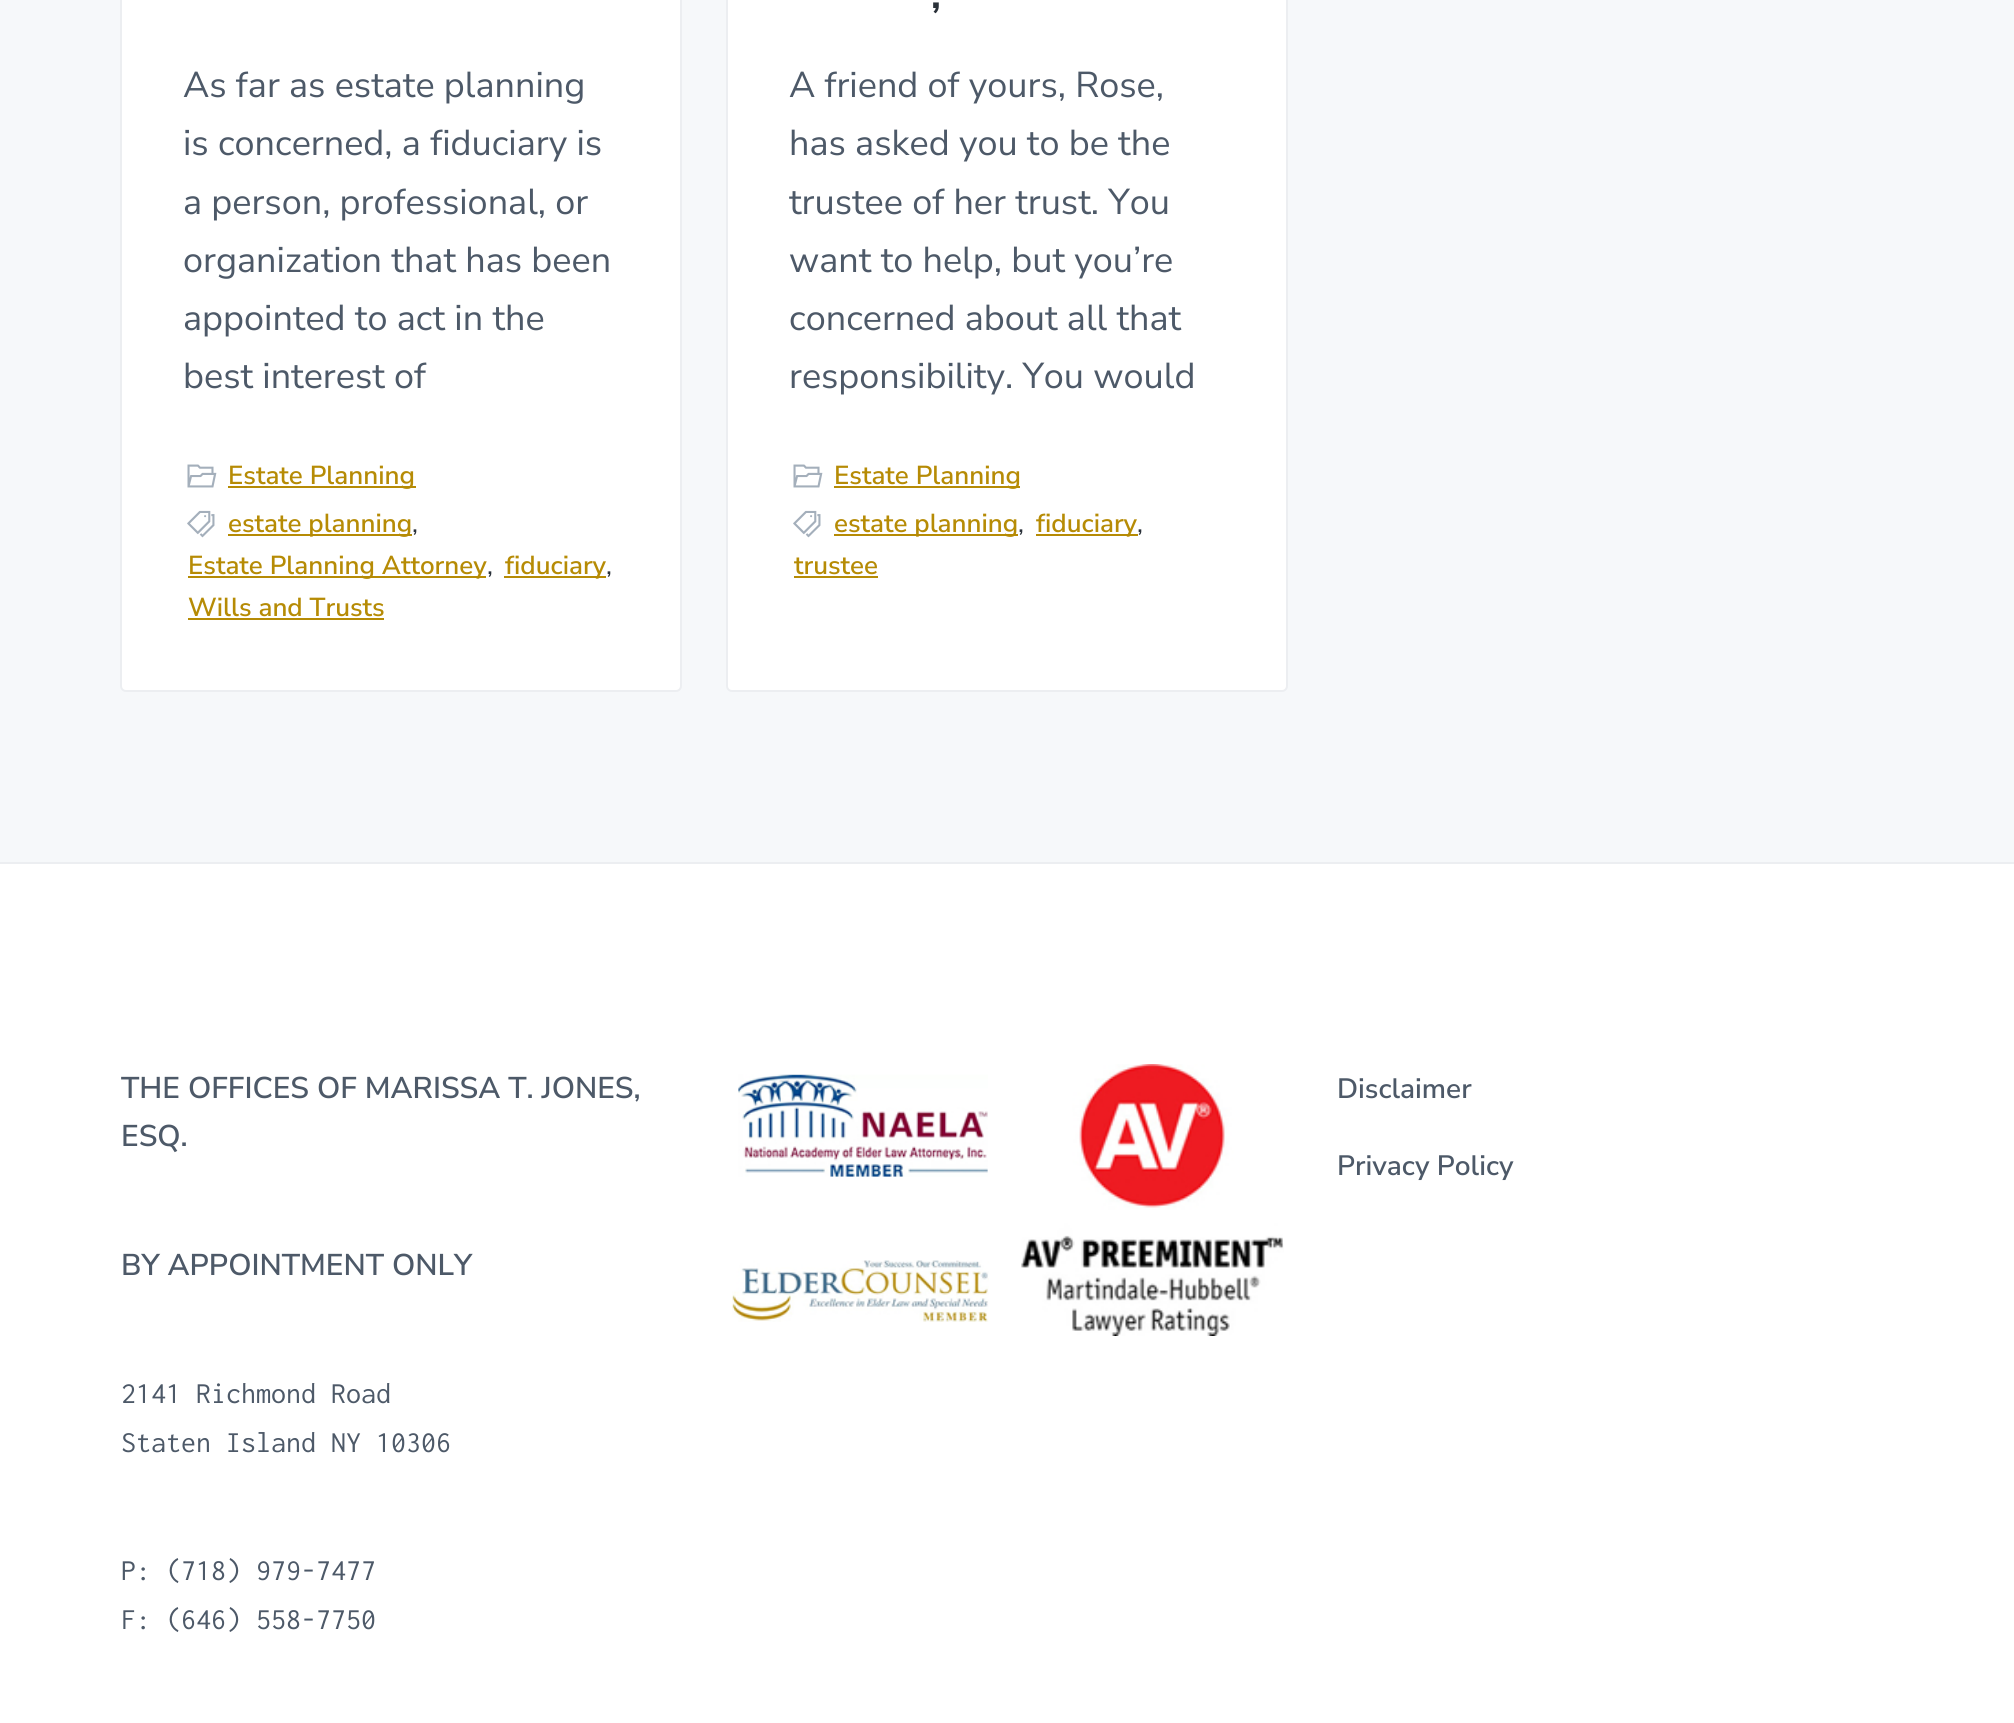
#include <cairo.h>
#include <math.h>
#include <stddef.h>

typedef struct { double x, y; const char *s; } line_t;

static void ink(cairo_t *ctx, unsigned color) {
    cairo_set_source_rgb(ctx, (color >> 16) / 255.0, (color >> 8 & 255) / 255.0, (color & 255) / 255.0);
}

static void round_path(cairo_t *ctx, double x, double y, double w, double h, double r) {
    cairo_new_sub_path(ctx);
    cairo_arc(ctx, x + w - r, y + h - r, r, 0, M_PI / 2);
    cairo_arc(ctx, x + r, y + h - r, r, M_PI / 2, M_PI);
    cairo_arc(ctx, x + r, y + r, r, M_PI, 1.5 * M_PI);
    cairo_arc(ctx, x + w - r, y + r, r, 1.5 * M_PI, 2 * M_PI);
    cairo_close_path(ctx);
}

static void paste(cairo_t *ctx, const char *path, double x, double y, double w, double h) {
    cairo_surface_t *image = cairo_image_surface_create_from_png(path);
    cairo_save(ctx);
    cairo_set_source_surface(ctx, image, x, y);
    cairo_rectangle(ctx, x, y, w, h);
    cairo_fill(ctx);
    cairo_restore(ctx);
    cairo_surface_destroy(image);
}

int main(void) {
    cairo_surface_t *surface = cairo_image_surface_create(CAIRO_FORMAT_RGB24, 2014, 1723);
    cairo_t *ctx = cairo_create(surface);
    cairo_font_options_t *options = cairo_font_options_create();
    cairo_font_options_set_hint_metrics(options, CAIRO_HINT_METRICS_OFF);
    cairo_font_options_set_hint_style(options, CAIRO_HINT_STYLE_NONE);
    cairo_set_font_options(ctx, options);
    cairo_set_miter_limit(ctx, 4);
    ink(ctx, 0xFFFFFF);
    cairo_paint(ctx);
    ink(ctx, 0xF6F8FA);
    cairo_rectangle(ctx, 0, 0, 2014, 862);
    cairo_fill(ctx);
    ink(ctx, 0xFFFFFF);
    round_path(ctx, 121, -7, 560, 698, 5);
    cairo_fill_preserve(ctx);
    ink(ctx, 0xECEEF1);
    cairo_stroke(ctx);
    cairo_select_font_face(ctx, "Nunito Sans", CAIRO_FONT_SLANT_NORMAL, CAIRO_FONT_WEIGHT_NORMAL);
    cairo_set_font_size(ctx, 36);
    ink(ctx, 0x4D5968);
    {
        static const line_t items[] = {
            {183, 97, "As far as estate planning"},
            {183, 155, "is concerned, a fiduciary is"},
            {183, 214, "a person, professional, or"},
            {183, 272, "organization that has been"},
            {183, 330, "appointed to act in the"},
            {183, 388, "best interest of"},
        };
        for (size_t i = 0; i < sizeof items / sizeof *items; i++) {
            cairo_move_to(ctx, items[i].x, items[i].y);
            cairo_show_text(ctx, items[i].s);
        }
    }
    paste(ctx, "media/1.png", 187, 464, 30, 24);
    ink(ctx, 0xB68B05);
    cairo_rectangle(ctx, 228, 486, 188, 2);
    cairo_fill(ctx);
    cairo_select_font_face(ctx, "Nunito Sans SemiBold", CAIRO_FONT_SLANT_NORMAL, CAIRO_FONT_WEIGHT_NORMAL);
    cairo_set_font_size(ctx, 26);
    cairo_move_to(ctx, 228, 484);
    cairo_show_text(ctx, "Estate Planning");
    paste(ctx, "media/2.png", 187, 510, 28, 28);
    cairo_rectangle(ctx, 228, 534, 184, 2);
    cairo_fill(ctx);
    cairo_move_to(ctx, 228, 532);
    cairo_show_text(ctx, "estate planning");
    cairo_select_font_face(ctx, "Nunito Sans", CAIRO_FONT_SLANT_NORMAL, CAIRO_FONT_WEIGHT_NORMAL);
    ink(ctx, 0x2A3139);
    cairo_move_to(ctx, 412, 532);
    cairo_show_text(ctx, ",");
    ink(ctx, 0xB68B05);
    cairo_rectangle(ctx, 188, 576, 298, 2);
    cairo_fill(ctx);
    cairo_select_font_face(ctx, "Nunito Sans SemiBold", CAIRO_FONT_SLANT_NORMAL, CAIRO_FONT_WEIGHT_NORMAL);
    cairo_move_to(ctx, 188, 574);
    cairo_show_text(ctx, "Estate Planning Attorney");
    cairo_select_font_face(ctx, "Nunito Sans", CAIRO_FONT_SLANT_NORMAL, CAIRO_FONT_WEIGHT_NORMAL);
    ink(ctx, 0x2A3139);
    cairo_move_to(ctx, 487, 574);
    cairo_show_text(ctx, ",");
    ink(ctx, 0xB68B05);
    cairo_rectangle(ctx, 504, 576, 102, 2);
    cairo_fill(ctx);
    cairo_select_font_face(ctx, "Nunito Sans SemiBold", CAIRO_FONT_SLANT_NORMAL, CAIRO_FONT_WEIGHT_NORMAL);
    cairo_move_to(ctx, 505, 574);
    cairo_show_text(ctx, "fiduciary");
    cairo_select_font_face(ctx, "Nunito Sans", CAIRO_FONT_SLANT_NORMAL, CAIRO_FONT_WEIGHT_NORMAL);
    ink(ctx, 0x2A3139);
    cairo_move_to(ctx, 606, 574);
    cairo_show_text(ctx, ",");
    cairo_select_font_face(ctx, "Nunito Sans SemiBold", CAIRO_FONT_SLANT_NORMAL, CAIRO_FONT_WEIGHT_NORMAL);
    ink(ctx, 0xB68B05);
    cairo_move_to(ctx, 188, 616);
    cairo_show_text(ctx, "Wills and Trusts");
    cairo_rectangle(ctx, 188, 618, 196, 2);
    cairo_fill(ctx);
    ink(ctx, 0xFFFFFF);
    round_path(ctx, 727, -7, 560, 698, 5);
    cairo_fill_preserve(ctx);
    ink(ctx, 0xECEEF1);
    cairo_stroke(ctx);
    cairo_select_font_face(ctx, "Nunito Sans", CAIRO_FONT_SLANT_NORMAL, CAIRO_FONT_WEIGHT_BOLD);
    cairo_set_font_size(ctx, 40);
    ink(ctx, 0x2A3139);
    cairo_move_to(ctx, 931, 8);
    cairo_show_text(ctx, ",");
    cairo_select_font_face(ctx, "Nunito Sans", CAIRO_FONT_SLANT_NORMAL, CAIRO_FONT_WEIGHT_NORMAL);
    cairo_set_font_size(ctx, 36);
    ink(ctx, 0x4D5968);
    {
        static const line_t items[] = {
            {789, 97, "A friend of yours, Rose,"},
            {789, 155, "has asked you to be the"},
            {789, 214, "trustee of her trust. You"},
            {789, 272, "want to help, but you’re"},
            {789, 330, "concerned about all that"},
            {789, 388, "responsibility. You would"},
        };
        for (size_t i = 0; i < sizeof items / sizeof *items; i++) {
            cairo_move_to(ctx, items[i].x, items[i].y);
            cairo_show_text(ctx, items[i].s);
        }
    }
    paste(ctx, "media/1.png", 793, 464, 30, 24);
    ink(ctx, 0xB68B05);
    cairo_rectangle(ctx, 834, 486, 186, 2);
    cairo_fill(ctx);
    cairo_select_font_face(ctx, "Nunito Sans SemiBold", CAIRO_FONT_SLANT_NORMAL, CAIRO_FONT_WEIGHT_NORMAL);
    cairo_set_font_size(ctx, 26);
    cairo_move_to(ctx, 834, 484);
    cairo_show_text(ctx, "Estate Planning");
    paste(ctx, "media/2.png", 793, 510, 28, 28);
    cairo_rectangle(ctx, 834, 534, 184, 2);
    cairo_fill(ctx);
    cairo_move_to(ctx, 834, 532);
    cairo_show_text(ctx, "estate planning");
    cairo_select_font_face(ctx, "Nunito Sans", CAIRO_FONT_SLANT_NORMAL, CAIRO_FONT_WEIGHT_NORMAL);
    ink(ctx, 0x2A3139);
    cairo_move_to(ctx, 1018, 532);
    cairo_show_text(ctx, ",");
    ink(ctx, 0xB68B05);
    cairo_rectangle(ctx, 1036, 534, 102, 2);
    cairo_fill(ctx);
    cairo_select_font_face(ctx, "Nunito Sans SemiBold", CAIRO_FONT_SLANT_NORMAL, CAIRO_FONT_WEIGHT_NORMAL);
    cairo_move_to(ctx, 1036, 532);
    cairo_show_text(ctx, "fiduciary");
    cairo_select_font_face(ctx, "Nunito Sans", CAIRO_FONT_SLANT_NORMAL, CAIRO_FONT_WEIGHT_NORMAL);
    ink(ctx, 0x2A3139);
    cairo_move_to(ctx, 1137, 532);
    cairo_show_text(ctx, ",");
    cairo_select_font_face(ctx, "Nunito Sans SemiBold", CAIRO_FONT_SLANT_NORMAL, CAIRO_FONT_WEIGHT_NORMAL);
    ink(ctx, 0xB68B05);
    cairo_move_to(ctx, 794, 574);
    cairo_show_text(ctx, "trustee");
    cairo_rectangle(ctx, 794, 576, 84, 2);
    cairo_fill(ctx);
    ink(ctx, 0xECEEF1);
    cairo_rectangle(ctx, 0, 862, 2014, 2);
    cairo_fill(ctx);
    cairo_set_font_size(ctx, 30);
    ink(ctx, 0x4D5968);
    {
        static const line_t items[] = {
            {121, 1098, "THE OFFICES OF MARISSA T. JONES,"},
            {121, 1146, "ESQ."},
            {121, 1275, "BY APPOINTMENT ONLY"},
        };
        for (size_t i = 0; i < sizeof items / sizeof *items; i++) {
            cairo_move_to(ctx, items[i].x, items[i].y);
            cairo_show_text(ctx, items[i].s);
        }
    }
    cairo_select_font_face(ctx, "Inconsolata", CAIRO_FONT_SLANT_NORMAL, CAIRO_FONT_WEIGHT_NORMAL);
    {
        static const line_t items[] = {
            {121, 1403, "2141 Richmond Road"},
            {121, 1452, "Staten Island NY 10306"},
            {121, 1580, "P: (718) 979-7477"},
            {121, 1629, "F: (646) 558-7750"},
        };
        for (size_t i = 0; i < sizeof items / sizeof *items; i++) {
            cairo_move_to(ctx, items[i].x, items[i].y);
            cairo_show_text(ctx, items[i].s);
        }
    }
    paste(ctx, "media/3.png", 738, 1074, 250, 103);
    paste(ctx, "media/4.png", 732, 1260, 257, 62);
    paste(ctx, "media/5.png", 1021, 1064, 263, 272);
    cairo_select_font_face(ctx, "Nunito Sans SemiBold", CAIRO_FONT_SLANT_NORMAL, CAIRO_FONT_WEIGHT_NORMAL);
    cairo_set_font_size(ctx, 28);
    cairo_move_to(ctx, 1337, 1098);
    cairo_show_text(ctx, "Disclaimer");
    cairo_move_to(ctx, 1337, 1175);
    cairo_show_text(ctx, "Privacy Policy");
    cairo_surface_write_to_png(surface, "image.png");
    cairo_font_options_destroy(options);
    cairo_destroy(ctx);
    cairo_surface_destroy(surface);
    return 0;
}
